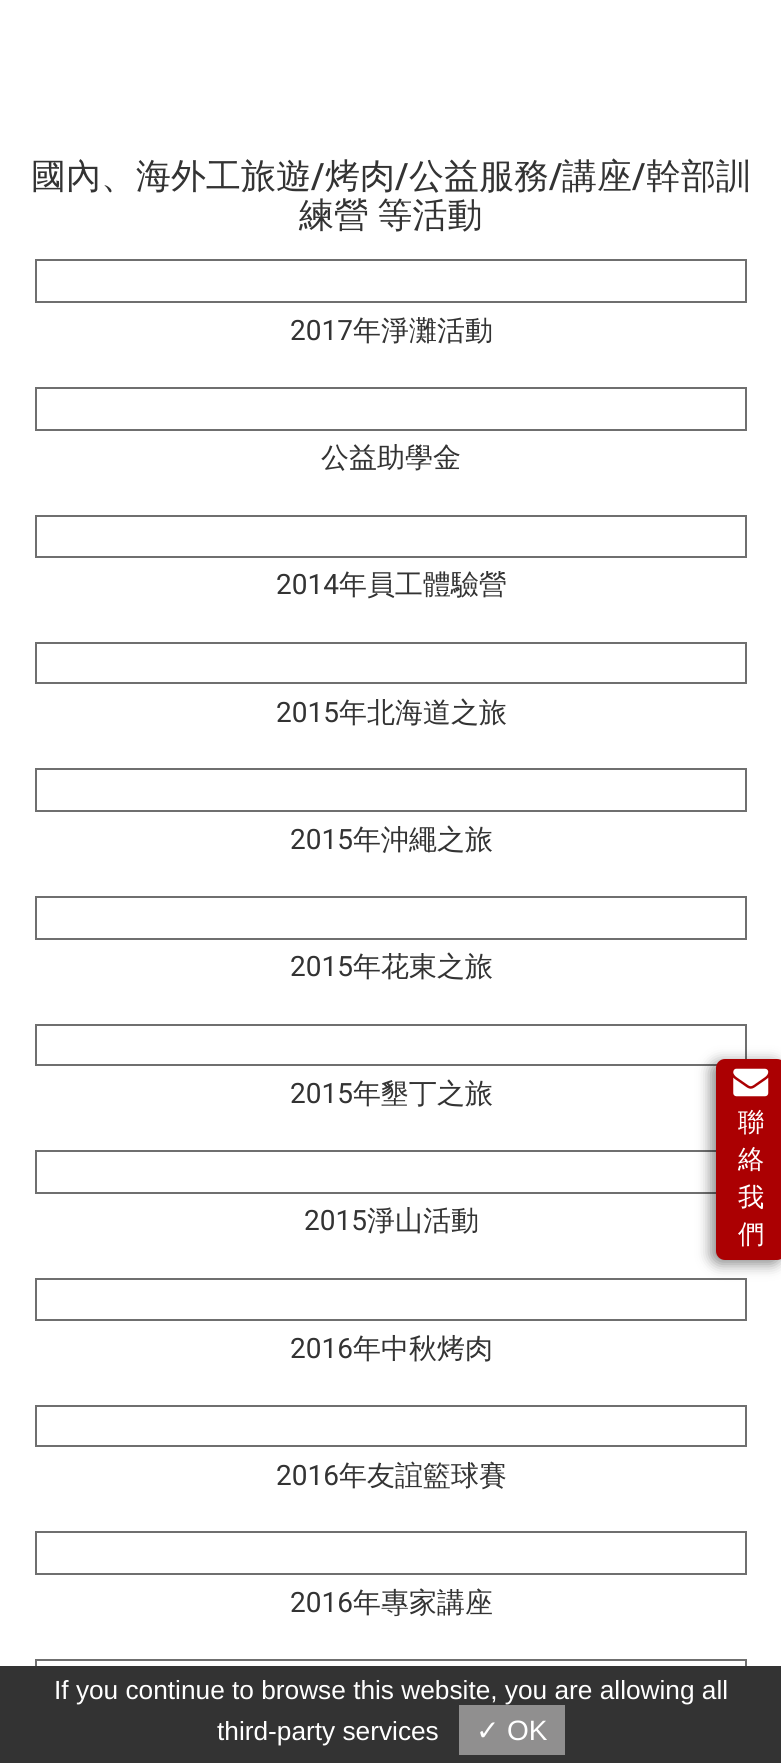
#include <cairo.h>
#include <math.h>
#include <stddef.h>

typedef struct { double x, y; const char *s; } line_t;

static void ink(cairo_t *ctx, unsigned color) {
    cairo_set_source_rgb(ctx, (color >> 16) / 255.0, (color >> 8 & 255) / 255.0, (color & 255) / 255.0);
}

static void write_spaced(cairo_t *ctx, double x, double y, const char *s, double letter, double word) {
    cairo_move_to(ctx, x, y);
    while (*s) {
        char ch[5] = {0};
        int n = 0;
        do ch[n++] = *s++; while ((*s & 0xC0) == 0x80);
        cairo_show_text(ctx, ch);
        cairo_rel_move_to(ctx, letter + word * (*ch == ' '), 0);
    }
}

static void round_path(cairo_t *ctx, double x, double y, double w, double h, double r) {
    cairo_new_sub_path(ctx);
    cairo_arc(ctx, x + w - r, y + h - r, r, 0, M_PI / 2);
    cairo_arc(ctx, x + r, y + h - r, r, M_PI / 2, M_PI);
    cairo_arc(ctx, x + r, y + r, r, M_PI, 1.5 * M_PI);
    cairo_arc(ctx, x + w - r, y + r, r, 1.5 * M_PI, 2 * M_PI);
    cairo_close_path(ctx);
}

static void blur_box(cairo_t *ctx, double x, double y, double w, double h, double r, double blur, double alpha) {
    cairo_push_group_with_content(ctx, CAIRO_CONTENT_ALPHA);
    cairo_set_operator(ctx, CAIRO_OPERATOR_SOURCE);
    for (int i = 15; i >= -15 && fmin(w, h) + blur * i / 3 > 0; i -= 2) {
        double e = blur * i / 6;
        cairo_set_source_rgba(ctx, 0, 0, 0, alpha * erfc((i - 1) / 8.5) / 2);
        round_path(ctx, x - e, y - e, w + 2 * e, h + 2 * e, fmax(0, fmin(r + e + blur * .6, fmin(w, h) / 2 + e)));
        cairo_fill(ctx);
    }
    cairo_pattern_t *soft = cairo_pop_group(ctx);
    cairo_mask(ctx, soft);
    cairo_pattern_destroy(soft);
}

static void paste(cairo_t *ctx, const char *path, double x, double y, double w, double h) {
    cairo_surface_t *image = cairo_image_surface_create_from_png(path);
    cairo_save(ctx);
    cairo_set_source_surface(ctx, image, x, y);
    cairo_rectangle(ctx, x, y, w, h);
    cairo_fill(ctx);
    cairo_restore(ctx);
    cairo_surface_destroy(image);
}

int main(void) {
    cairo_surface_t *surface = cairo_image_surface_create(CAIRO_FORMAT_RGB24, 781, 1763);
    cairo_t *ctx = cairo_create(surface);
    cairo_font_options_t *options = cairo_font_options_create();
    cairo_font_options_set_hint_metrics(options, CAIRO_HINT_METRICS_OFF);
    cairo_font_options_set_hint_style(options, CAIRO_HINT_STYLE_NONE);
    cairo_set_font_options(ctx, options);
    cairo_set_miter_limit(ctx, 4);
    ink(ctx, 0xFFFFFF);
    cairo_paint(ctx);
    cairo_select_font_face(ctx, "WenQuanYi Zen Hei Medium", CAIRO_FONT_SLANT_NORMAL, CAIRO_FONT_WEIGHT_NORMAL);
    cairo_set_font_size(ctx, 35);
    ink(ctx, 0x333333);
    cairo_move_to(ctx, 31, 188);
    cairo_show_text(ctx, "國內、海外工旅遊");
    cairo_select_font_face(ctx, "Roboto Medium", CAIRO_FONT_SLANT_NORMAL, CAIRO_FONT_WEIGHT_NORMAL);
    cairo_move_to(ctx, 311, 188);
    cairo_show_text(ctx, "/");
    cairo_select_font_face(ctx, "WenQuanYi Zen Hei Medium", CAIRO_FONT_SLANT_NORMAL, CAIRO_FONT_WEIGHT_NORMAL);
    cairo_move_to(ctx, 325, 188);
    cairo_show_text(ctx, "烤肉");
    cairo_select_font_face(ctx, "Roboto Medium", CAIRO_FONT_SLANT_NORMAL, CAIRO_FONT_WEIGHT_NORMAL);
    cairo_move_to(ctx, 395, 188);
    cairo_show_text(ctx, "/");
    cairo_select_font_face(ctx, "WenQuanYi Zen Hei Medium", CAIRO_FONT_SLANT_NORMAL, CAIRO_FONT_WEIGHT_NORMAL);
    cairo_move_to(ctx, 409, 188);
    cairo_show_text(ctx, "公益服務");
    cairo_select_font_face(ctx, "Roboto Medium", CAIRO_FONT_SLANT_NORMAL, CAIRO_FONT_WEIGHT_NORMAL);
    cairo_move_to(ctx, 549, 188);
    cairo_show_text(ctx, "/");
    cairo_select_font_face(ctx, "WenQuanYi Zen Hei Medium", CAIRO_FONT_SLANT_NORMAL, CAIRO_FONT_WEIGHT_NORMAL);
    cairo_move_to(ctx, 562, 188);
    cairo_show_text(ctx, "講座");
    cairo_select_font_face(ctx, "Roboto Medium", CAIRO_FONT_SLANT_NORMAL, CAIRO_FONT_WEIGHT_NORMAL);
    cairo_move_to(ctx, 632, 188);
    cairo_show_text(ctx, "/");
    cairo_select_font_face(ctx, "WenQuanYi Zen Hei Medium", CAIRO_FONT_SLANT_NORMAL, CAIRO_FONT_WEIGHT_NORMAL);
    cairo_move_to(ctx, 646, 188);
    cairo_show_text(ctx, "幹部訓");
    write_spaced(ctx, 299, 227, "練營 等活動", 0, -2);
    cairo_rectangle(ctx, 36, 260, 710, 42);
    ink(ctx, 0x6F6F6F);
    cairo_stroke(ctx);
    cairo_select_font_face(ctx, "Roboto", CAIRO_FONT_SLANT_NORMAL, CAIRO_FONT_WEIGHT_NORMAL);
    cairo_set_font_size(ctx, 28);
    ink(ctx, 0x333333);
    cairo_move_to(ctx, 290, 340);
    cairo_show_text(ctx, "2017");
    cairo_select_font_face(ctx, "WenQuanYi Zen Hei Medium", CAIRO_FONT_SLANT_NORMAL, CAIRO_FONT_WEIGHT_NORMAL);
    cairo_move_to(ctx, 353, 340);
    cairo_show_text(ctx, "年淨灘活動");
    cairo_rectangle(ctx, 36, 388, 710, 42);
    ink(ctx, 0x6F6F6F);
    cairo_stroke(ctx);
    ink(ctx, 0x333333);
    cairo_move_to(ctx, 321, 467);
    cairo_show_text(ctx, "公益助學金");
    cairo_rectangle(ctx, 36, 516, 710, 41);
    ink(ctx, 0x6F6F6F);
    cairo_stroke(ctx);
    cairo_select_font_face(ctx, "Roboto", CAIRO_FONT_SLANT_NORMAL, CAIRO_FONT_WEIGHT_NORMAL);
    ink(ctx, 0x333333);
    cairo_move_to(ctx, 276, 594);
    cairo_show_text(ctx, "2014");
    cairo_select_font_face(ctx, "WenQuanYi Zen Hei Medium", CAIRO_FONT_SLANT_NORMAL, CAIRO_FONT_WEIGHT_NORMAL);
    cairo_move_to(ctx, 339, 594);
    cairo_show_text(ctx, "年員工體驗營");
    cairo_rectangle(ctx, 36, 643, 710, 40);
    ink(ctx, 0x6F6F6F);
    cairo_stroke(ctx);
    cairo_select_font_face(ctx, "Roboto", CAIRO_FONT_SLANT_NORMAL, CAIRO_FONT_WEIGHT_NORMAL);
    ink(ctx, 0x333333);
    cairo_move_to(ctx, 276, 722);
    cairo_show_text(ctx, "2015");
    cairo_select_font_face(ctx, "WenQuanYi Zen Hei Medium", CAIRO_FONT_SLANT_NORMAL, CAIRO_FONT_WEIGHT_NORMAL);
    cairo_move_to(ctx, 339, 722);
    cairo_show_text(ctx, "年北海道之旅");
    cairo_rectangle(ctx, 36, 769, 710, 42);
    ink(ctx, 0x6F6F6F);
    cairo_stroke(ctx);
    cairo_select_font_face(ctx, "Roboto", CAIRO_FONT_SLANT_NORMAL, CAIRO_FONT_WEIGHT_NORMAL);
    ink(ctx, 0x333333);
    cairo_move_to(ctx, 290, 849);
    cairo_show_text(ctx, "2015");
    cairo_select_font_face(ctx, "WenQuanYi Zen Hei Medium", CAIRO_FONT_SLANT_NORMAL, CAIRO_FONT_WEIGHT_NORMAL);
    cairo_move_to(ctx, 353, 849);
    cairo_show_text(ctx, "年沖繩之旅");
    cairo_rectangle(ctx, 36, 897, 710, 42);
    ink(ctx, 0x6F6F6F);
    cairo_stroke(ctx);
    cairo_select_font_face(ctx, "Roboto", CAIRO_FONT_SLANT_NORMAL, CAIRO_FONT_WEIGHT_NORMAL);
    ink(ctx, 0x333333);
    cairo_move_to(ctx, 290, 976);
    cairo_show_text(ctx, "2015");
    cairo_select_font_face(ctx, "WenQuanYi Zen Hei Medium", CAIRO_FONT_SLANT_NORMAL, CAIRO_FONT_WEIGHT_NORMAL);
    cairo_move_to(ctx, 353, 976);
    cairo_show_text(ctx, "年花東之旅");
    cairo_rectangle(ctx, 36, 1025, 710, 40);
    ink(ctx, 0x6F6F6F);
    cairo_stroke(ctx);
    cairo_select_font_face(ctx, "Roboto", CAIRO_FONT_SLANT_NORMAL, CAIRO_FONT_WEIGHT_NORMAL);
    ink(ctx, 0x333333);
    cairo_move_to(ctx, 290, 1103);
    cairo_show_text(ctx, "2015");
    cairo_select_font_face(ctx, "WenQuanYi Zen Hei Medium", CAIRO_FONT_SLANT_NORMAL, CAIRO_FONT_WEIGHT_NORMAL);
    cairo_move_to(ctx, 353, 1103);
    cairo_show_text(ctx, "年墾丁之旅");
    cairo_rectangle(ctx, 36, 1151, 710, 42);
    ink(ctx, 0x6F6F6F);
    cairo_stroke(ctx);
    cairo_select_font_face(ctx, "Roboto", CAIRO_FONT_SLANT_NORMAL, CAIRO_FONT_WEIGHT_NORMAL);
    ink(ctx, 0x333333);
    cairo_move_to(ctx, 304, 1230);
    cairo_show_text(ctx, "2015");
    cairo_select_font_face(ctx, "WenQuanYi Zen Hei Medium", CAIRO_FONT_SLANT_NORMAL, CAIRO_FONT_WEIGHT_NORMAL);
    cairo_move_to(ctx, 367, 1230);
    cairo_show_text(ctx, "淨山活動");
    cairo_rectangle(ctx, 36, 1279, 710, 41);
    ink(ctx, 0x6F6F6F);
    cairo_stroke(ctx);
    cairo_select_font_face(ctx, "Roboto", CAIRO_FONT_SLANT_NORMAL, CAIRO_FONT_WEIGHT_NORMAL);
    ink(ctx, 0x333333);
    cairo_move_to(ctx, 290, 1358);
    cairo_show_text(ctx, "2016");
    cairo_select_font_face(ctx, "WenQuanYi Zen Hei Medium", CAIRO_FONT_SLANT_NORMAL, CAIRO_FONT_WEIGHT_NORMAL);
    cairo_move_to(ctx, 353, 1358);
    cairo_show_text(ctx, "年中秋烤肉");
    cairo_rectangle(ctx, 36, 1406, 710, 40);
    ink(ctx, 0x6F6F6F);
    cairo_stroke(ctx);
    cairo_select_font_face(ctx, "Roboto", CAIRO_FONT_SLANT_NORMAL, CAIRO_FONT_WEIGHT_NORMAL);
    ink(ctx, 0x333333);
    cairo_move_to(ctx, 276, 1485);
    cairo_show_text(ctx, "2016");
    cairo_select_font_face(ctx, "WenQuanYi Zen Hei Medium", CAIRO_FONT_SLANT_NORMAL, CAIRO_FONT_WEIGHT_NORMAL);
    cairo_move_to(ctx, 339, 1485);
    cairo_show_text(ctx, "年友誼籃球賽");
    cairo_rectangle(ctx, 36, 1532, 710, 42);
    ink(ctx, 0x6F6F6F);
    cairo_stroke(ctx);
    cairo_select_font_face(ctx, "Roboto", CAIRO_FONT_SLANT_NORMAL, CAIRO_FONT_WEIGHT_NORMAL);
    ink(ctx, 0x333333);
    cairo_move_to(ctx, 290, 1612);
    cairo_show_text(ctx, "2016");
    cairo_select_font_face(ctx, "WenQuanYi Zen Hei Medium", CAIRO_FONT_SLANT_NORMAL, CAIRO_FONT_WEIGHT_NORMAL);
    cairo_move_to(ctx, 353, 1612);
    cairo_show_text(ctx, "年專家講座");
    cairo_rectangle(ctx, 36, 1660, 710, 42);
    ink(ctx, 0x6F6F6F);
    cairo_stroke(ctx);
    ink(ctx, 0x000000);
    blur_box(ctx, 711, 1062, 70, 202, 9, 7, 0.47);
    ink(ctx, 0xAB0002);
    round_path(ctx, 716, 1059, 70, 201, 9);
    cairo_fill(ctx);
    paste(ctx, "media/1.png", 733, 1068, 36, 29);
    cairo_set_font_size(ctx, 26.25);
    ink(ctx, 0xFFFFFF);
    {
        static const line_t items[] = {
            {738, 1131, "聯"},
            {738, 1168, "絡"},
            {738, 1206, "我"},
            {738, 1243, "們"},
        };
        for (size_t i = 0; i < sizeof items / sizeof *items; i++) {
            cairo_move_to(ctx, items[i].x, items[i].y);
            cairo_show_text(ctx, items[i].s);
        }
    }
    ink(ctx, 0x333333);
    cairo_rectangle(ctx, 0, 1666, 781, 97);
    cairo_fill(ctx);
    cairo_select_font_face(ctx, "Liberation Sans", CAIRO_FONT_SLANT_NORMAL, CAIRO_FONT_WEIGHT_NORMAL);
    ink(ctx, 0xFFFFFF);
    cairo_move_to(ctx, 54, 1699);
    cairo_show_text(ctx, "If you continue to browse this website, you are allowing all");
    cairo_move_to(ctx, 217, 1740);
    cairo_show_text(ctx, "third-party services");
    ink(ctx, 0x908F8F);
    cairo_rectangle(ctx, 459, 1705, 106, 50);
    cairo_fill(ctx);
    cairo_select_font_face(ctx, "DejaVu Sans", CAIRO_FONT_SLANT_NORMAL, CAIRO_FONT_WEIGHT_NORMAL);
    cairo_set_font_size(ctx, 28);
    ink(ctx, 0xFFFFFF);
    cairo_move_to(ctx, 476, 1740);
    cairo_show_text(ctx, "✓");
    cairo_select_font_face(ctx, "Liberation Sans", CAIRO_FONT_SLANT_NORMAL, CAIRO_FONT_WEIGHT_NORMAL);
    cairo_move_to(ctx, 507, 1740);
    cairo_show_text(ctx, "OK");
    cairo_surface_write_to_png(surface, "image.png");
    cairo_font_options_destroy(options);
    cairo_destroy(ctx);
    cairo_surface_destroy(surface);
    return 0;
}
